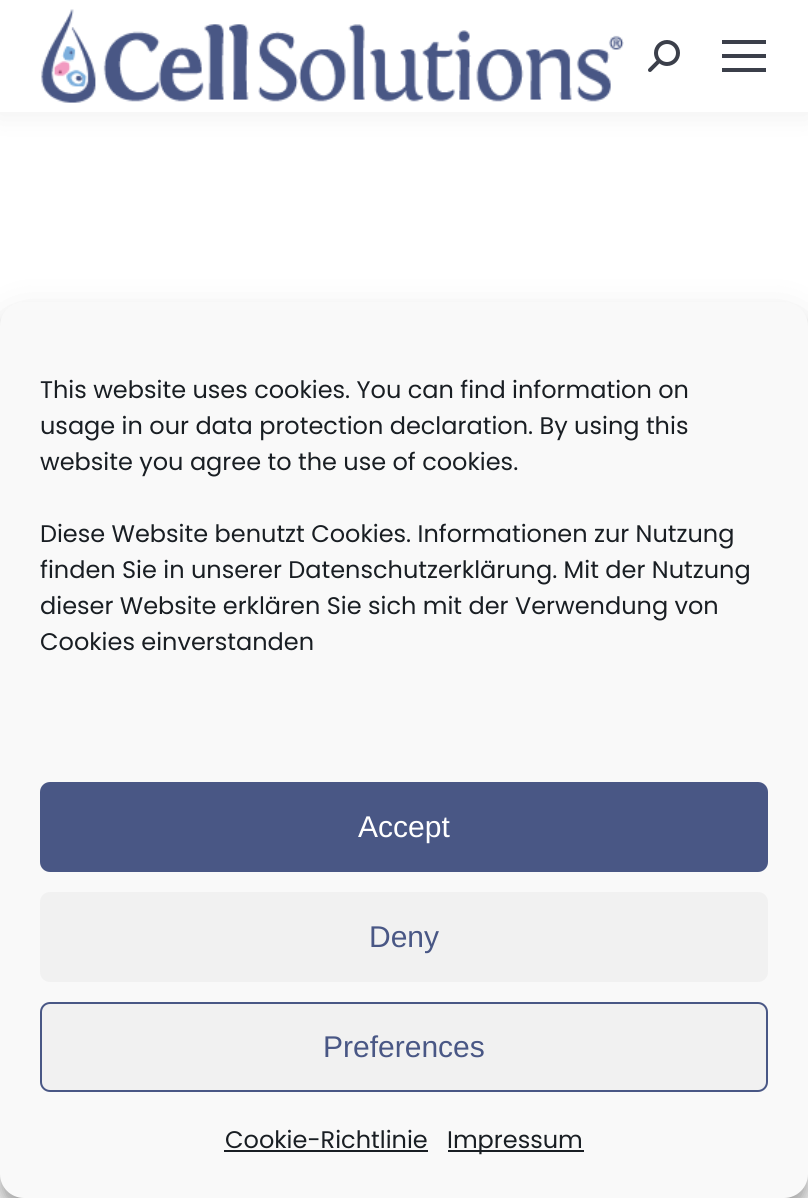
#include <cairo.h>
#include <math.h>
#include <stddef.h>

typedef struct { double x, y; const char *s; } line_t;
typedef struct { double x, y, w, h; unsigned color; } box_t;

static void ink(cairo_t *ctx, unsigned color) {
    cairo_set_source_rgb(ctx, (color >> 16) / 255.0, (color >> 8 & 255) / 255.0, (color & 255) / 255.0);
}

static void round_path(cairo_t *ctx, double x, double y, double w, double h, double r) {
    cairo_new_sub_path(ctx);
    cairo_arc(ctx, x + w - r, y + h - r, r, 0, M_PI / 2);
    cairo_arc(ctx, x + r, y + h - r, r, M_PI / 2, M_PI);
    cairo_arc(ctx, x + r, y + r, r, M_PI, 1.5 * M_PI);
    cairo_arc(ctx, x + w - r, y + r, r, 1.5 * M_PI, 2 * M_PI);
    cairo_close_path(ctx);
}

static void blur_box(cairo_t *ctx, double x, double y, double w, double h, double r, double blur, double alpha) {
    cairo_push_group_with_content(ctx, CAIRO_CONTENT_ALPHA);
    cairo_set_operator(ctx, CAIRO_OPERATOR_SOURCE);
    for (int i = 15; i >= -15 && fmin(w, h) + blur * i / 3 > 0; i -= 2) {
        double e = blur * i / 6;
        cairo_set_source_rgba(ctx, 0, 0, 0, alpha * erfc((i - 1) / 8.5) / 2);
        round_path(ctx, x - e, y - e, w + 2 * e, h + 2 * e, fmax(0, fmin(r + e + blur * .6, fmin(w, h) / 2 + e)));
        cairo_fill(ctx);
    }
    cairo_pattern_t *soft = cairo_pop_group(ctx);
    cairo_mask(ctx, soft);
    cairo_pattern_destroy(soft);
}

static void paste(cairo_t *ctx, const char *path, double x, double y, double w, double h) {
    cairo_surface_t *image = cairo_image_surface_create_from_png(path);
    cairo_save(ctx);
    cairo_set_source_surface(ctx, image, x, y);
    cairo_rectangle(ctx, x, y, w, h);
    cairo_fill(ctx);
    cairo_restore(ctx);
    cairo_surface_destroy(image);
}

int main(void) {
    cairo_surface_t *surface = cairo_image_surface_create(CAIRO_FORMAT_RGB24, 808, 1198);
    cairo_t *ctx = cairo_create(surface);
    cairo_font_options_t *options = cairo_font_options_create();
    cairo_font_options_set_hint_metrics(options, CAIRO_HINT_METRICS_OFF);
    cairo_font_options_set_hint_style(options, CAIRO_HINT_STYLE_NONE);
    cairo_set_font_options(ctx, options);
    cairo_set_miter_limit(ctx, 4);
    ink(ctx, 0xFFFFFF);
    cairo_paint(ctx);
    ink(ctx, 0x000000);
    blur_box(ctx, -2, -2, 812, 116, 0, 15, 0.07);
    ink(ctx, 0xFFFFFF);
    cairo_rectangle(ctx, 0, 0, 808, 112);
    cairo_fill(ctx);
    paste(ctx, "media/1.png", 41, 9, 583, 94);
    paste(ctx, "media/2.png", 648, 40, 32, 32);
    {
        static const box_t items[] = {
            {722, 40, 44, 4, 0x3B3F4A},
            {722, 54, 44, 4, 0x3B3F4A},
            {722, 68, 44, 4, 0x3B3F4A},
        };
        for (size_t i = 0; i < sizeof items / sizeof *items; i++) {
            ink(ctx, items[i].color);
            cairo_rectangle(ctx, items[i].x, items[i].y, items[i].w, items[i].h);
            cairo_fill(ctx);
        }
    }
    ink(ctx, 0x000000);
    blur_box(ctx, 0, 314, 808, 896, 24, 6, 0.23);
    blur_box(ctx, 0, 322, 808, 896, 24, 20, 0.19);
    ink(ctx, 0xF9F9F9);
    round_path(ctx, 0, 302, 808, 896, 24);
    cairo_fill(ctx);
    cairo_select_font_face(ctx, "Poppins", CAIRO_FONT_SLANT_NORMAL, CAIRO_FONT_WEIGHT_NORMAL);
    cairo_set_font_size(ctx, 24);
    ink(ctx, 0x191E23);
    {
        static const line_t items[] = {
            {40, 398, "This website uses cookies. You can find information on"},
            {40, 434, "usage in our data protection declaration. By using this"},
            {40, 470, "website you agree to the use of cookies."},
            {40, 542, "Diese Website benutzt Cookies. Informationen zur Nutzung"},
            {40, 578, "finden Sie in unserer Datenschutzerklärung. Mit der Nutzung"},
            {40, 614, "dieser Website erklären Sie sich mit der Verwendung von"},
            {40, 650, "Cookies einverstanden"},
        };
        for (size_t i = 0; i < sizeof items / sizeof *items; i++) {
            cairo_move_to(ctx, items[i].x, items[i].y);
            cairo_show_text(ctx, items[i].s);
        }
    }
    ink(ctx, 0x495785);
    round_path(ctx, 41, 783, 726, 88, 9);
    cairo_fill_preserve(ctx);
    cairo_stroke(ctx);
    cairo_select_font_face(ctx, "Liberation Sans", CAIRO_FONT_SLANT_NORMAL, CAIRO_FONT_WEIGHT_NORMAL);
    cairo_set_font_size(ctx, 30);
    ink(ctx, 0xFFFFFF);
    cairo_move_to(ctx, 358, 837);
    cairo_show_text(ctx, "Accept");
    ink(ctx, 0xF1F1F1);
    round_path(ctx, 40, 892, 728, 90, 10);
    cairo_fill(ctx);
    ink(ctx, 0x495785);
    cairo_move_to(ctx, 369, 947);
    cairo_show_text(ctx, "Deny");
    ink(ctx, 0xF1F1F1);
    round_path(ctx, 41, 1003, 726, 88, 9);
    cairo_fill_preserve(ctx);
    ink(ctx, 0x495785);
    cairo_stroke(ctx);
    cairo_move_to(ctx, 323, 1057);
    cairo_show_text(ctx, "Preferences");
    cairo_select_font_face(ctx, "Poppins", CAIRO_FONT_SLANT_NORMAL, CAIRO_FONT_WEIGHT_NORMAL);
    cairo_set_font_size(ctx, 24);
    ink(ctx, 0x191E23);
    cairo_move_to(ctx, 225, 1148);
    cairo_show_text(ctx, "Cookie-Richtlinie");
    cairo_rectangle(ctx, 224, 1150, 204, 2);
    cairo_fill(ctx);
    cairo_rectangle(ctx, 448, 1150, 136, 2);
    cairo_fill(ctx);
    cairo_move_to(ctx, 447, 1148);
    cairo_show_text(ctx, "Impressum");
    cairo_surface_write_to_png(surface, "image.png");
    cairo_font_options_destroy(options);
    cairo_destroy(ctx);
    cairo_surface_destroy(surface);
    return 0;
}
